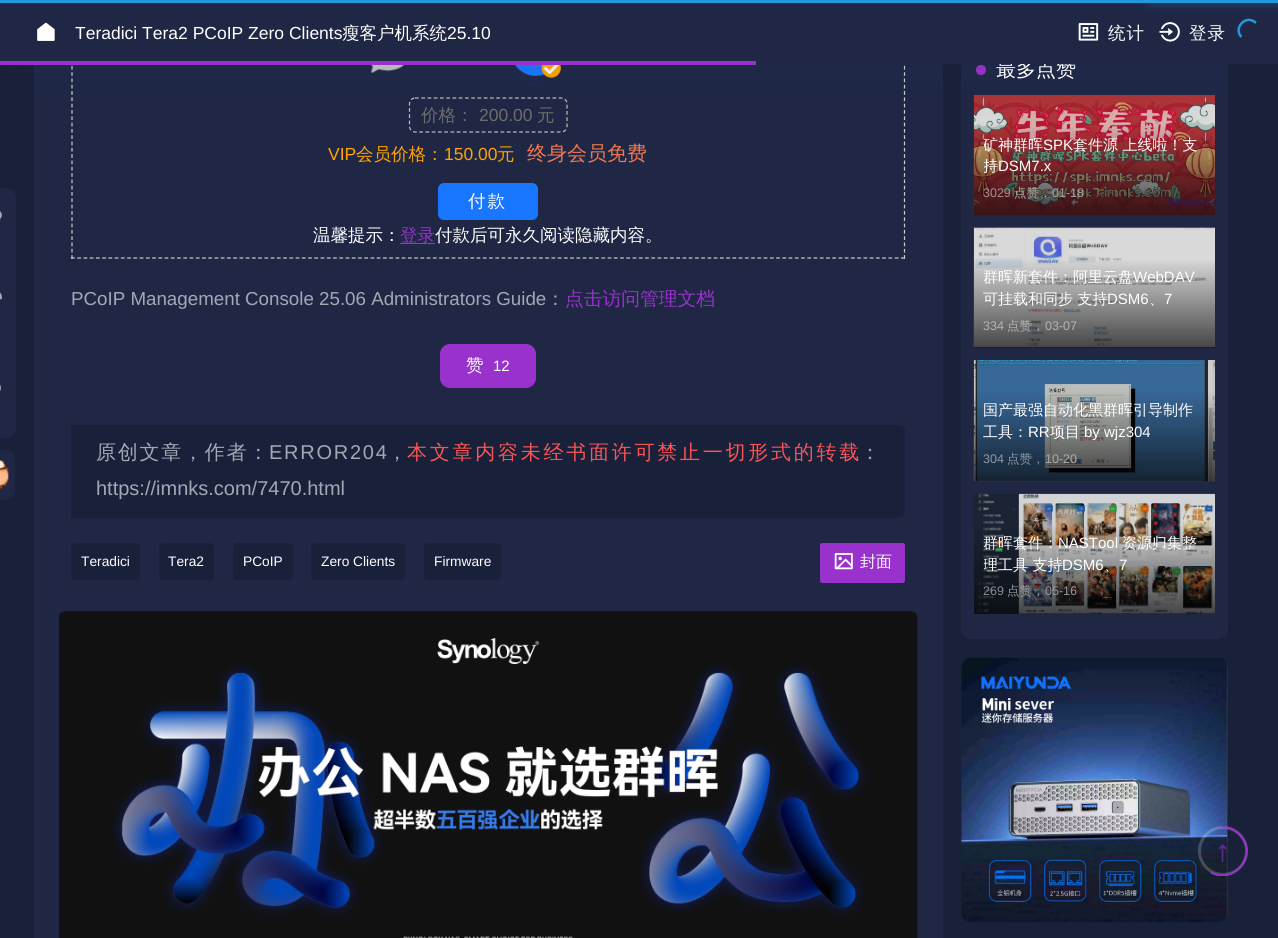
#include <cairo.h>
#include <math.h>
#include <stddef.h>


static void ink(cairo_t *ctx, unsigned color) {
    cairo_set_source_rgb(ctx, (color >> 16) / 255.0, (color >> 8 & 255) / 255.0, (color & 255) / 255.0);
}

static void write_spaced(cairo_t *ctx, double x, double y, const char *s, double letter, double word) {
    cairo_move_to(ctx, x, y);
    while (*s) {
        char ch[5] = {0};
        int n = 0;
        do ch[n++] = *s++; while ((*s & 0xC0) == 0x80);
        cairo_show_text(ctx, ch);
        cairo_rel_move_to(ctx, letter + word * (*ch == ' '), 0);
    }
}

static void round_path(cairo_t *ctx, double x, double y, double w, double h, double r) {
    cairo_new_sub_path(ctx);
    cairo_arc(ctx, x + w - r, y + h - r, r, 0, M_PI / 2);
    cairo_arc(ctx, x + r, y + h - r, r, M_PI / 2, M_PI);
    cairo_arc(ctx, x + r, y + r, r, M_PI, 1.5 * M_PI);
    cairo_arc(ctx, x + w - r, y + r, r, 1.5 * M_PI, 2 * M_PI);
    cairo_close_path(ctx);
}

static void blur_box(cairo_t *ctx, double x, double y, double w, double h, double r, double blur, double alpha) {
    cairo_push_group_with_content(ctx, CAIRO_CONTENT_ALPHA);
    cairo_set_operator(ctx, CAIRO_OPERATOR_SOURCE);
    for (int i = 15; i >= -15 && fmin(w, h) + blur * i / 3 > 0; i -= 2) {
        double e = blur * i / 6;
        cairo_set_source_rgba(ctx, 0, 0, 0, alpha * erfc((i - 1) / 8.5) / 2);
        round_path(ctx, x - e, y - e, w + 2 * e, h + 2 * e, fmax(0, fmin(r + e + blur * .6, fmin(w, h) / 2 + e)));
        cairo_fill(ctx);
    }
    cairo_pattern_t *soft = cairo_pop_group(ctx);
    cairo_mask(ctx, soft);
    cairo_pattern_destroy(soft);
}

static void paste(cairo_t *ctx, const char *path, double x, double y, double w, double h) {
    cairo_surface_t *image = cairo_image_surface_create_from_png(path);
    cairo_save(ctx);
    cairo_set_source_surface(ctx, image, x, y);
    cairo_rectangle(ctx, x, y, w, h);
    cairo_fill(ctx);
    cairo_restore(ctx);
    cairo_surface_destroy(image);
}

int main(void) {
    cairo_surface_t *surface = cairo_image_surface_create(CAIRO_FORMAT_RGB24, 1278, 938);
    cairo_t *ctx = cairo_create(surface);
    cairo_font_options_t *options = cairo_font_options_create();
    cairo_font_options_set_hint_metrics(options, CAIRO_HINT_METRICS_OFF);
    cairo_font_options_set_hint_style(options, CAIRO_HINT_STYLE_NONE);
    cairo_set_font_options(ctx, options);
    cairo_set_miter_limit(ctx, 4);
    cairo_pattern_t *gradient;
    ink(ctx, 0x192039);
    cairo_paint(ctx);
    ink(ctx, 0x1F2745);
    cairo_rectangle(ctx, 34, 64, 909, 874);
    cairo_fill(ctx);
    cairo_new_path(ctx);
    cairo_move_to(ctx, 904.5, -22.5);
    cairo_line_to(ctx, 904.5, 259);
    ink(ctx, 0xCCCCCC);
    cairo_set_line_width(ctx, 1.2);
    cairo_set_dash(ctx, (double[]){3.75, 2.56}, 2, 0);
    cairo_stroke(ctx);
    cairo_new_path(ctx);
    cairo_move_to(ctx, 71, 258);
    cairo_line_to(ctx, 905, 258);
    cairo_set_dash(ctx, (double[]){3.75, 2.49}, 2, 0);
    cairo_stroke(ctx);
    cairo_new_path(ctx);
    cairo_move_to(ctx, 72, -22.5);
    cairo_line_to(ctx, 72, 259);
    cairo_set_dash(ctx, (double[]){3.75, 2.56}, 2, 0);
    cairo_stroke(ctx);
    paste(ctx, "media/7.png", 370, 65, 35, 8);
    paste(ctx, "media/8.png", 514, 65, 47, 20);
    cairo_new_path(ctx);
    cairo_move_to(ctx, 415, 98);
    cairo_line_to(ctx, 561, 98);
    cairo_curve_to(ctx, 564.5, 98, 567, 100.5, 567, 104);
    cairo_line_to(ctx, 567, 126);
    cairo_curve_to(ctx, 567, 129.5, 564.5, 132, 561, 132);
    cairo_line_to(ctx, 415, 132);
    cairo_curve_to(ctx, 412, 132, 409.5, 129.5, 409.5, 126);
    cairo_line_to(ctx, 409.5, 104);
    cairo_curve_to(ctx, 409.5, 100.5, 412, 98, 415, 98);
    cairo_close_path(ctx);
    ink(ctx, 0xBFBFBF);
    cairo_set_dash(ctx, (double[]){3.75, 2.5}, 2, 0);
    cairo_stroke(ctx);
    ink(ctx, 0x1F2745);
    round_path(ctx, 961, 40, 267, 599, 10);
    cairo_fill(ctx);
    ink(ctx, 0x9932CC);
    cairo_arc(ctx, 981, 70, 5, 0, 2 * M_PI);
    cairo_fill(ctx);
    paste(ctx, "media/12.png", 973, 95, 242, 120);
    ink(ctx, 0x113A5D);
    blur_box(ctx, 0, 6, 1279, 64, 0, 25, 0.1);
    ink(ctx, 0x2299DD);
    cairo_rectangle(ctx, 0, 0, 1278, 3);
    cairo_fill(ctx);
    cairo_select_font_face(ctx, "WenQuanYi Zen Hei Medium", CAIRO_FONT_SLANT_NORMAL, CAIRO_FONT_WEIGHT_NORMAL);
    cairo_set_font_size(ctx, 20);
    ink(ctx, 0xFFFFFF);
    cairo_move_to(ctx, 996, 76);
    cairo_show_text(ctx, "最多点赞");
    ink(ctx, 0x1F2745);
    cairo_rectangle(ctx, 0, 3, 1278, 61);
    cairo_fill(ctx);
    ink(ctx, 0x2299DD);
    blur_box(ctx, 1154, -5, 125, 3, 0, 6.5, 1);
    cairo_new_path(ctx);
    cairo_move_to(ctx, 1241.5, 37);
    cairo_curve_to(ctx, 1232.5, 28, 1246.5, 13.5, 1256, 23);
    ink(ctx, 0x2299DD);
    cairo_set_line_width(ctx, 2.5);
    cairo_set_dash(ctx, NULL, 0, 0);
    cairo_stroke(ctx);
    paste(ctx, "media/1.png", 37, 22, 18, 19);
    cairo_select_font_face(ctx, "Liberation Sans", CAIRO_FONT_SLANT_NORMAL, CAIRO_FONT_WEIGHT_NORMAL);
    cairo_set_font_size(ctx, 17.5);
    ink(ctx, 0xFFFFFF);
    cairo_move_to(ctx, 75, 39);
    cairo_show_text(ctx, "Teradici Tera2 PCoIP Zero Clients");
    cairo_select_font_face(ctx, "WenQuanYi Zen Hei Medium", CAIRO_FONT_SLANT_NORMAL, CAIRO_FONT_WEIGHT_NORMAL);
    cairo_move_to(ctx, 342, 39);
    cairo_show_text(ctx, "瘦客户机系统");
    cairo_select_font_face(ctx, "Liberation Sans", CAIRO_FONT_SLANT_NORMAL, CAIRO_FONT_WEIGHT_NORMAL);
    cairo_move_to(ctx, 447, 39);
    cairo_show_text(ctx, "25.10");
    paste(ctx, "media/2.png", 1078, 23, 21, 18);
    cairo_select_font_face(ctx, "WenQuanYi Zen Hei Medium", CAIRO_FONT_SLANT_NORMAL, CAIRO_FONT_WEIGHT_NORMAL);
    write_spaced(ctx, 1108, 39, "统计", 1, 0);
    paste(ctx, "media/3.png", 1159, 22, 21, 20);
    write_spaced(ctx, 1189, 39, "登录", 1, 0);
    ink(ctx, 0x9932CC);
    cairo_rectangle(ctx, 0, 61, 756, 4);
    cairo_fill(ctx);
    ink(ctx, 0x1F2745);
    round_path(ctx, -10, 188, 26, 250, 10);
    cairo_fill(ctx);
    paste(ctx, "media/4.png", 0, 211, 2, 11);
    paste(ctx, "media/5.png", 0, 292, 2, 8);
    paste(ctx, "media/6.png", 0, 384, 1, 7);
    ink(ctx, 0x6D6D6D);
    cairo_move_to(ctx, 421, 121);
    cairo_show_text(ctx, "价格：");
    cairo_select_font_face(ctx, "Liberation Sans", CAIRO_FONT_SLANT_NORMAL, CAIRO_FONT_WEIGHT_NORMAL);
    cairo_move_to(ctx, 479, 121);
    cairo_show_text(ctx, "200.00");
    cairo_select_font_face(ctx, "WenQuanYi Zen Hei Medium", CAIRO_FONT_SLANT_NORMAL, CAIRO_FONT_WEIGHT_NORMAL);
    cairo_move_to(ctx, 537, 121);
    cairo_show_text(ctx, "元");
    cairo_select_font_face(ctx, "Liberation Sans", CAIRO_FONT_SLANT_NORMAL, CAIRO_FONT_WEIGHT_NORMAL);
    ink(ctx, 0xFFA400);
    cairo_move_to(ctx, 328, 160);
    cairo_show_text(ctx, "VIP");
    cairo_select_font_face(ctx, "WenQuanYi Zen Hei Medium", CAIRO_FONT_SLANT_NORMAL, CAIRO_FONT_WEIGHT_NORMAL);
    cairo_move_to(ctx, 356, 160);
    cairo_show_text(ctx, "会员价格：");
    cairo_select_font_face(ctx, "Liberation Sans", CAIRO_FONT_SLANT_NORMAL, CAIRO_FONT_WEIGHT_NORMAL);
    cairo_move_to(ctx, 444, 160);
    cairo_show_text(ctx, "150.00");
    cairo_select_font_face(ctx, "WenQuanYi Zen Hei Medium", CAIRO_FONT_SLANT_NORMAL, CAIRO_FONT_WEIGHT_NORMAL);
    cairo_move_to(ctx, 497, 160);
    cairo_show_text(ctx, "元");
    cairo_set_font_size(ctx, 20);
    ink(ctx, 0xEE7751);
    cairo_move_to(ctx, 527, 160);
    cairo_show_text(ctx, "终身会员免费");
    ink(ctx, 0x1977FF);
    round_path(ctx, 438, 183, 100, 37, 6);
    cairo_fill(ctx);
    cairo_set_font_size(ctx, 17.5);
    ink(ctx, 0xFFFFFF);
    write_spaced(ctx, 468, 207, "付款", 2, 0);
    cairo_move_to(ctx, 313, 241);
    cairo_show_text(ctx, "温馨提示：");
    ink(ctx, 0x9932CC);
    cairo_rectangle(ctx, 400, 243, 35, 1);
    cairo_fill(ctx);
    cairo_move_to(ctx, 400, 241);
    cairo_show_text(ctx, "登录");
    ink(ctx, 0xFFFFFF);
    cairo_move_to(ctx, 435, 241);
    cairo_show_text(ctx, "付款后可永久阅读隐藏内容。");
    cairo_select_font_face(ctx, "Liberation Sans", CAIRO_FONT_SLANT_NORMAL, CAIRO_FONT_WEIGHT_NORMAL);
    cairo_set_font_size(ctx, 18.75);
    ink(ctx, 0xA4A8B4);
    cairo_move_to(ctx, 71, 305);
    cairo_show_text(ctx, "PCoIP Management Console 25.06 Administrators Guide");
    cairo_select_font_face(ctx, "WenQuanYi Zen Hei Medium", CAIRO_FONT_SLANT_NORMAL, CAIRO_FONT_WEIGHT_NORMAL);
    cairo_move_to(ctx, 546, 305);
    cairo_show_text(ctx, "：");
    ink(ctx, 0x9932CC);
    cairo_move_to(ctx, 565, 305);
    cairo_show_text(ctx, "点击访问管理文档");
    round_path(ctx, 440.5, 344.5, 95, 43, 9.5);
    cairo_fill_preserve(ctx);
    cairo_set_line_width(ctx, 1);
    cairo_stroke(ctx);
    cairo_set_font_size(ctx, 17.5);
    ink(ctx, 0xFFFFFF);
    write_spaced(ctx, 466, 371, "赞", 2, 0);
    cairo_select_font_face(ctx, "Liberation Sans", CAIRO_FONT_SLANT_NORMAL, CAIRO_FONT_WEIGHT_NORMAL);
    cairo_set_font_size(ctx, 15);
    cairo_move_to(ctx, 493, 371);
    cairo_show_text(ctx, "12");
    ink(ctx, 0x192039);
    cairo_new_path(ctx);
    cairo_move_to(ctx, 71, 425);
    cairo_line_to(ctx, 899, 425);
    cairo_curve_to(ctx, 902.5, 425, 905, 427.5, 905, 431);
    cairo_line_to(ctx, 905, 512);
    cairo_curve_to(ctx, 905, 515.5, 902.5, 518, 899, 518);
    cairo_line_to(ctx, 71, 518);
    cairo_close_path(ctx);
    cairo_fill(ctx);
    cairo_select_font_face(ctx, "WenQuanYi Zen Hei Medium", CAIRO_FONT_SLANT_NORMAL, CAIRO_FONT_WEIGHT_NORMAL);
    cairo_set_font_size(ctx, 20);
    ink(ctx, 0xA4A8B4);
    write_spaced(ctx, 96, 459, "原创文章，作者：", 1.75, 0);
    cairo_select_font_face(ctx, "Liberation Sans", CAIRO_FONT_SLANT_NORMAL, CAIRO_FONT_WEIGHT_NORMAL);
    write_spaced(ctx, 269, 459, "ERROR204", 1.75, 0);
    cairo_select_font_face(ctx, "WenQuanYi Zen Hei Medium", CAIRO_FONT_SLANT_NORMAL, CAIRO_FONT_WEIGHT_NORMAL);
    write_spaced(ctx, 387, 459, "，", 1.75, 0);
    ink(ctx, 0xFA5555);
    write_spaced(ctx, 407, 459, "本文章内容未经书面许可禁止一切形式的转载", 2.75, 0);
    ink(ctx, 0xA4A8B4);
    cairo_move_to(ctx, 860, 459);
    cairo_show_text(ctx, "：");
    cairo_select_font_face(ctx, "Liberation Sans", CAIRO_FONT_SLANT_NORMAL, CAIRO_FONT_WEIGHT_NORMAL);
    cairo_move_to(ctx, 96, 495);
    cairo_show_text(ctx, "https://imnks.com/7470.html");
    ink(ctx, 0x1F2745);
    round_path(ctx, -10, 450, 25, 50, 10);
    cairo_fill(ctx);
    paste(ctx, "media/9.png", 0, 459, 9, 32);
    ink(ctx, 0x192039);
    round_path(ctx, 71, 543, 69, 37, 4);
    cairo_fill(ctx);
    cairo_set_font_size(ctx, 13.75);
    ink(ctx, 0xFFFFFF);
    cairo_move_to(ctx, 81, 566);
    cairo_show_text(ctx, "Teradici");
    ink(ctx, 0x192039);
    round_path(ctx, 159, 543, 55, 37, 4);
    cairo_fill(ctx);
    ink(ctx, 0xFFFFFF);
    cairo_move_to(ctx, 168, 566);
    cairo_show_text(ctx, "Tera2");
    ink(ctx, 0x192039);
    round_path(ctx, 233, 543, 60, 37, 4);
    cairo_fill(ctx);
    ink(ctx, 0xFFFFFF);
    cairo_move_to(ctx, 243, 566);
    cairo_show_text(ctx, "PCoIP");
    ink(ctx, 0x192039);
    round_path(ctx, 311, 543, 94, 37, 4);
    cairo_fill(ctx);
    ink(ctx, 0xFFFFFF);
    cairo_move_to(ctx, 321, 566);
    cairo_show_text(ctx, "Zero Clients");
    ink(ctx, 0x192039);
    round_path(ctx, 424, 543, 77, 37, 4);
    cairo_fill(ctx);
    ink(ctx, 0xFFFFFF);
    cairo_move_to(ctx, 434, 566);
    cairo_show_text(ctx, "Firmware");
    ink(ctx, 0x9932CC);
    round_path(ctx, 820, 543, 85, 40, 2.5);
    cairo_fill(ctx);
    paste(ctx, "media/10.png", 834, 553, 19, 17);
    cairo_select_font_face(ctx, "WenQuanYi Zen Hei Medium", CAIRO_FONT_SLANT_NORMAL, CAIRO_FONT_WEIGHT_NORMAL);
    cairo_set_font_size(ctx, 16);
    ink(ctx, 0xFFFFFF);
    cairo_move_to(ctx, 860, 567);
    cairo_show_text(ctx, "封面");
    paste(ctx, "media/11.png", 59, 611, 859, 327);
    cairo_save(ctx);
    cairo_rectangle(ctx, 984, 135, 221, 43);
    cairo_clip(ctx);
    cairo_set_font_size(ctx, 15);
    cairo_move_to(ctx, 983, 150);
    cairo_show_text(ctx, "矿神群晖");
    cairo_restore(ctx);
    cairo_select_font_face(ctx, "Liberation Sans", CAIRO_FONT_SLANT_NORMAL, CAIRO_FONT_WEIGHT_NORMAL);
    cairo_set_font_size(ctx, 15);
    cairo_move_to(ctx, 1043, 150);
    cairo_show_text(ctx, "SPK");
    cairo_select_font_face(ctx, "WenQuanYi Zen Hei Medium", CAIRO_FONT_SLANT_NORMAL, CAIRO_FONT_WEIGHT_NORMAL);
    cairo_move_to(ctx, 1073, 150);
    cairo_show_text(ctx, "套件源 上线啦！支");
    cairo_save(ctx);
    cairo_rectangle(ctx, 984, 135, 221, 43);
    cairo_clip(ctx);
    cairo_move_to(ctx, 983, 171);
    cairo_show_text(ctx, "持");
    cairo_restore(ctx);
    cairo_select_font_face(ctx, "Liberation Sans", CAIRO_FONT_SLANT_NORMAL, CAIRO_FONT_WEIGHT_NORMAL);
    cairo_move_to(ctx, 998, 171);
    cairo_show_text(ctx, "DSM7.x");
    cairo_set_font_size(ctx, 12.5);
    ink(ctx, 0xA69090);
    cairo_move_to(ctx, 983, 197);
    cairo_show_text(ctx, "3029");
    cairo_select_font_face(ctx, "WenQuanYi Zen Hei Medium", CAIRO_FONT_SLANT_NORMAL, CAIRO_FONT_WEIGHT_NORMAL);
    ink(ctx, 0xA8A09D);
    cairo_move_to(ctx, 1014, 197);
    cairo_show_text(ctx, "点赞，");
    cairo_select_font_face(ctx, "Liberation Sans", CAIRO_FONT_SLANT_NORMAL, CAIRO_FONT_WEIGHT_NORMAL);
    cairo_move_to(ctx, 1052, 197);
    cairo_show_text(ctx, "01-18");
    ink(ctx, 0x22283F);
    cairo_rectangle(ctx, 974, 347, 241, 1);
    cairo_fill(ctx);
    paste(ctx, "media/13.png", 973, 227, 242, 121);
    gradient = cairo_pattern_create_linear(1094, 258, 1094, 348);
    cairo_pattern_add_color_stop_rgba(gradient, 0, 0.024, 0.024, 0.031, 0);
    cairo_pattern_add_color_stop_rgba(gradient, 1, 0.024, 0.024, 0.031, 0.7);
    cairo_set_source(ctx, gradient);
    cairo_pattern_destroy(gradient);
    cairo_rectangle(ctx, 974, 261, 241, 87);
    cairo_fill(ctx);
    cairo_select_font_face(ctx, "WenQuanYi Zen Hei Medium", CAIRO_FONT_SLANT_NORMAL, CAIRO_FONT_WEIGHT_NORMAL);
    cairo_set_font_size(ctx, 15);
    ink(ctx, 0xFFFFFF);
    cairo_move_to(ctx, 983, 282);
    cairo_show_text(ctx, "群晖新套件：阿里云盘");
    cairo_select_font_face(ctx, "Liberation Sans", CAIRO_FONT_SLANT_NORMAL, CAIRO_FONT_WEIGHT_NORMAL);
    cairo_move_to(ctx, 1133, 282);
    cairo_show_text(ctx, "WebDAV");
    cairo_select_font_face(ctx, "WenQuanYi Zen Hei Medium", CAIRO_FONT_SLANT_NORMAL, CAIRO_FONT_WEIGHT_NORMAL);
    cairo_move_to(ctx, 983, 304);
    cairo_show_text(ctx, "可挂载和同步 支持");
    cairo_select_font_face(ctx, "Liberation Sans", CAIRO_FONT_SLANT_NORMAL, CAIRO_FONT_WEIGHT_NORMAL);
    cairo_move_to(ctx, 1107, 304);
    cairo_show_text(ctx, "DSM6");
    cairo_select_font_face(ctx, "WenQuanYi Zen Hei Medium", CAIRO_FONT_SLANT_NORMAL, CAIRO_FONT_WEIGHT_NORMAL);
    cairo_move_to(ctx, 1149, 304);
    cairo_show_text(ctx, "、");
    cairo_select_font_face(ctx, "Liberation Sans", CAIRO_FONT_SLANT_NORMAL, CAIRO_FONT_WEIGHT_NORMAL);
    cairo_move_to(ctx, 1164, 304);
    cairo_show_text(ctx, "7");
    cairo_set_font_size(ctx, 12.5);
    ink(ctx, 0xB4B4B5);
    cairo_move_to(ctx, 983, 330);
    cairo_show_text(ctx, "334");
    cairo_select_font_face(ctx, "WenQuanYi Zen Hei Medium", CAIRO_FONT_SLANT_NORMAL, CAIRO_FONT_WEIGHT_NORMAL);
    cairo_move_to(ctx, 1007, 330);
    cairo_show_text(ctx, "点赞，");
    cairo_select_font_face(ctx, "Liberation Sans", CAIRO_FONT_SLANT_NORMAL, CAIRO_FONT_WEIGHT_NORMAL);
    cairo_move_to(ctx, 1045, 330);
    cairo_show_text(ctx, "03-07");
    paste(ctx, "media/14.png", 973, 360, 242, 122);
    cairo_select_font_face(ctx, "WenQuanYi Zen Hei Medium", CAIRO_FONT_SLANT_NORMAL, CAIRO_FONT_WEIGHT_NORMAL);
    cairo_set_font_size(ctx, 15);
    ink(ctx, 0xFFFFFF);
    cairo_move_to(ctx, 983, 415);
    cairo_show_text(ctx, "国产最强自动化黑群晖引导制作");
    cairo_move_to(ctx, 983, 437);
    cairo_show_text(ctx, "工具：");
    cairo_select_font_face(ctx, "Liberation Sans", CAIRO_FONT_SLANT_NORMAL, CAIRO_FONT_WEIGHT_NORMAL);
    cairo_move_to(ctx, 1028, 437);
    cairo_show_text(ctx, "RR");
    cairo_select_font_face(ctx, "WenQuanYi Zen Hei Medium", CAIRO_FONT_SLANT_NORMAL, CAIRO_FONT_WEIGHT_NORMAL);
    cairo_move_to(ctx, 1050, 437);
    cairo_show_text(ctx, "项目");
    cairo_select_font_face(ctx, "Liberation Sans", CAIRO_FONT_SLANT_NORMAL, CAIRO_FONT_WEIGHT_NORMAL);
    cairo_move_to(ctx, 1084, 437);
    cairo_show_text(ctx, "by wjz304");
    cairo_set_font_size(ctx, 12.5);
    ink(ctx, 0x8E9AA5);
    cairo_move_to(ctx, 983, 463);
    cairo_show_text(ctx, "304");
    cairo_select_font_face(ctx, "WenQuanYi Zen Hei Medium", CAIRO_FONT_SLANT_NORMAL, CAIRO_FONT_WEIGHT_NORMAL);
    cairo_move_to(ctx, 1007, 463);
    cairo_show_text(ctx, "点赞，");
    cairo_select_font_face(ctx, "Liberation Sans", CAIRO_FONT_SLANT_NORMAL, CAIRO_FONT_WEIGHT_NORMAL);
    ink(ctx, 0xABACAB);
    cairo_move_to(ctx, 1045, 463);
    cairo_show_text(ctx, "10-20");
    ink(ctx, 0x22283F);
    cairo_rectangle(ctx, 974, 613, 241, 1);
    cairo_fill(ctx);
    paste(ctx, "media/15.png", 974, 493, 241, 121);
    gradient = cairo_pattern_create_linear(1094, 524, 1094, 614);
    cairo_pattern_add_color_stop_rgba(gradient, 0, 0.024, 0.024, 0.031, 0);
    cairo_pattern_add_color_stop_rgba(gradient, 1, 0.024, 0.024, 0.031, 0.7);
    cairo_set_source(ctx, gradient);
    cairo_pattern_destroy(gradient);
    cairo_rectangle(ctx, 974, 527, 241, 87);
    cairo_fill(ctx);
    cairo_select_font_face(ctx, "WenQuanYi Zen Hei Medium", CAIRO_FONT_SLANT_NORMAL, CAIRO_FONT_WEIGHT_NORMAL);
    cairo_set_font_size(ctx, 15);
    ink(ctx, 0xFFFFFF);
    cairo_move_to(ctx, 983, 548);
    cairo_show_text(ctx, "群晖套件：");
    cairo_select_font_face(ctx, "Liberation Sans", CAIRO_FONT_SLANT_NORMAL, CAIRO_FONT_WEIGHT_NORMAL);
    cairo_move_to(ctx, 1058, 548);
    cairo_show_text(ctx, "NASTool");
    cairo_select_font_face(ctx, "WenQuanYi Zen Hei Medium", CAIRO_FONT_SLANT_NORMAL, CAIRO_FONT_WEIGHT_NORMAL);
    cairo_move_to(ctx, 1122, 548);
    cairo_show_text(ctx, "资源归集整");
    cairo_save(ctx);
    cairo_rectangle(ctx, 984, 533, 221, 43);
    cairo_clip(ctx);
    cairo_move_to(ctx, 983, 570);
    cairo_show_text(ctx, "理工具 支持");
    cairo_restore(ctx);
    cairo_select_font_face(ctx, "Liberation Sans", CAIRO_FONT_SLANT_NORMAL, CAIRO_FONT_WEIGHT_NORMAL);
    cairo_move_to(ctx, 1062, 570);
    cairo_show_text(ctx, "DSM6");
    cairo_select_font_face(ctx, "WenQuanYi Zen Hei Medium", CAIRO_FONT_SLANT_NORMAL, CAIRO_FONT_WEIGHT_NORMAL);
    cairo_move_to(ctx, 1104, 570);
    cairo_show_text(ctx, "、");
    cairo_select_font_face(ctx, "Liberation Sans", CAIRO_FONT_SLANT_NORMAL, CAIRO_FONT_WEIGHT_NORMAL);
    cairo_move_to(ctx, 1119, 570);
    cairo_show_text(ctx, "7");
    cairo_set_font_size(ctx, 12.5);
    ink(ctx, 0x898B90);
    cairo_move_to(ctx, 983, 595);
    cairo_show_text(ctx, "269");
    cairo_select_font_face(ctx, "WenQuanYi Zen Hei Medium", CAIRO_FONT_SLANT_NORMAL, CAIRO_FONT_WEIGHT_NORMAL);
    ink(ctx, 0x989A9E);
    cairo_move_to(ctx, 1007, 595);
    cairo_show_text(ctx, "点赞，");
    cairo_select_font_face(ctx, "Liberation Sans", CAIRO_FONT_SLANT_NORMAL, CAIRO_FONT_WEIGHT_NORMAL);
    ink(ctx, 0x989798);
    cairo_move_to(ctx, 1045, 595);
    cairo_show_text(ctx, "05-16");
    paste(ctx, "media/16.png", 961, 657, 267, 266);
    cairo_arc(ctx, 1223, 851, 23.5, 0, 2 * M_PI);
    cairo_set_source_rgba(ctx, 1, 1, 1, 0.2);
    cairo_set_line_width(ctx, 3);
    cairo_stroke(ctx);
    cairo_save(ctx);
    cairo_rectangle(ctx, 1198, 826, 50, 50);
    cairo_clip(ctx);
    cairo_new_path(ctx);
    cairo_move_to(ctx, 1222.5, 827);
    cairo_curve_to(ctx, 1229, 827, 1235, 830, 1239.5, 834.5);
    cairo_curve_to(ctx, 1259.5, 854, 1234.5, 885, 1211, 872.5);
    ink(ctx, 0x9932CC);
    cairo_set_line_width(ctx, 2);
    cairo_stroke(ctx);
    cairo_restore(ctx);
    cairo_select_font_face(ctx, "Liberation Serif", CAIRO_FONT_SLANT_NORMAL, CAIRO_FONT_WEIGHT_NORMAL);
    cairo_set_font_size(ctx, 30);
    ink(ctx, 0x9932CC);
    cairo_move_to(ctx, 1215, 861);
    cairo_show_text(ctx, "↑");
    ink(ctx, 0x592A82);
    cairo_move_to(ctx, 1215, 861);
    cairo_show_text(ctx, "↑");
    cairo_surface_write_to_png(surface, "image.png");
    cairo_font_options_destroy(options);
    cairo_destroy(ctx);
    cairo_surface_destroy(surface);
    return 0;
}
